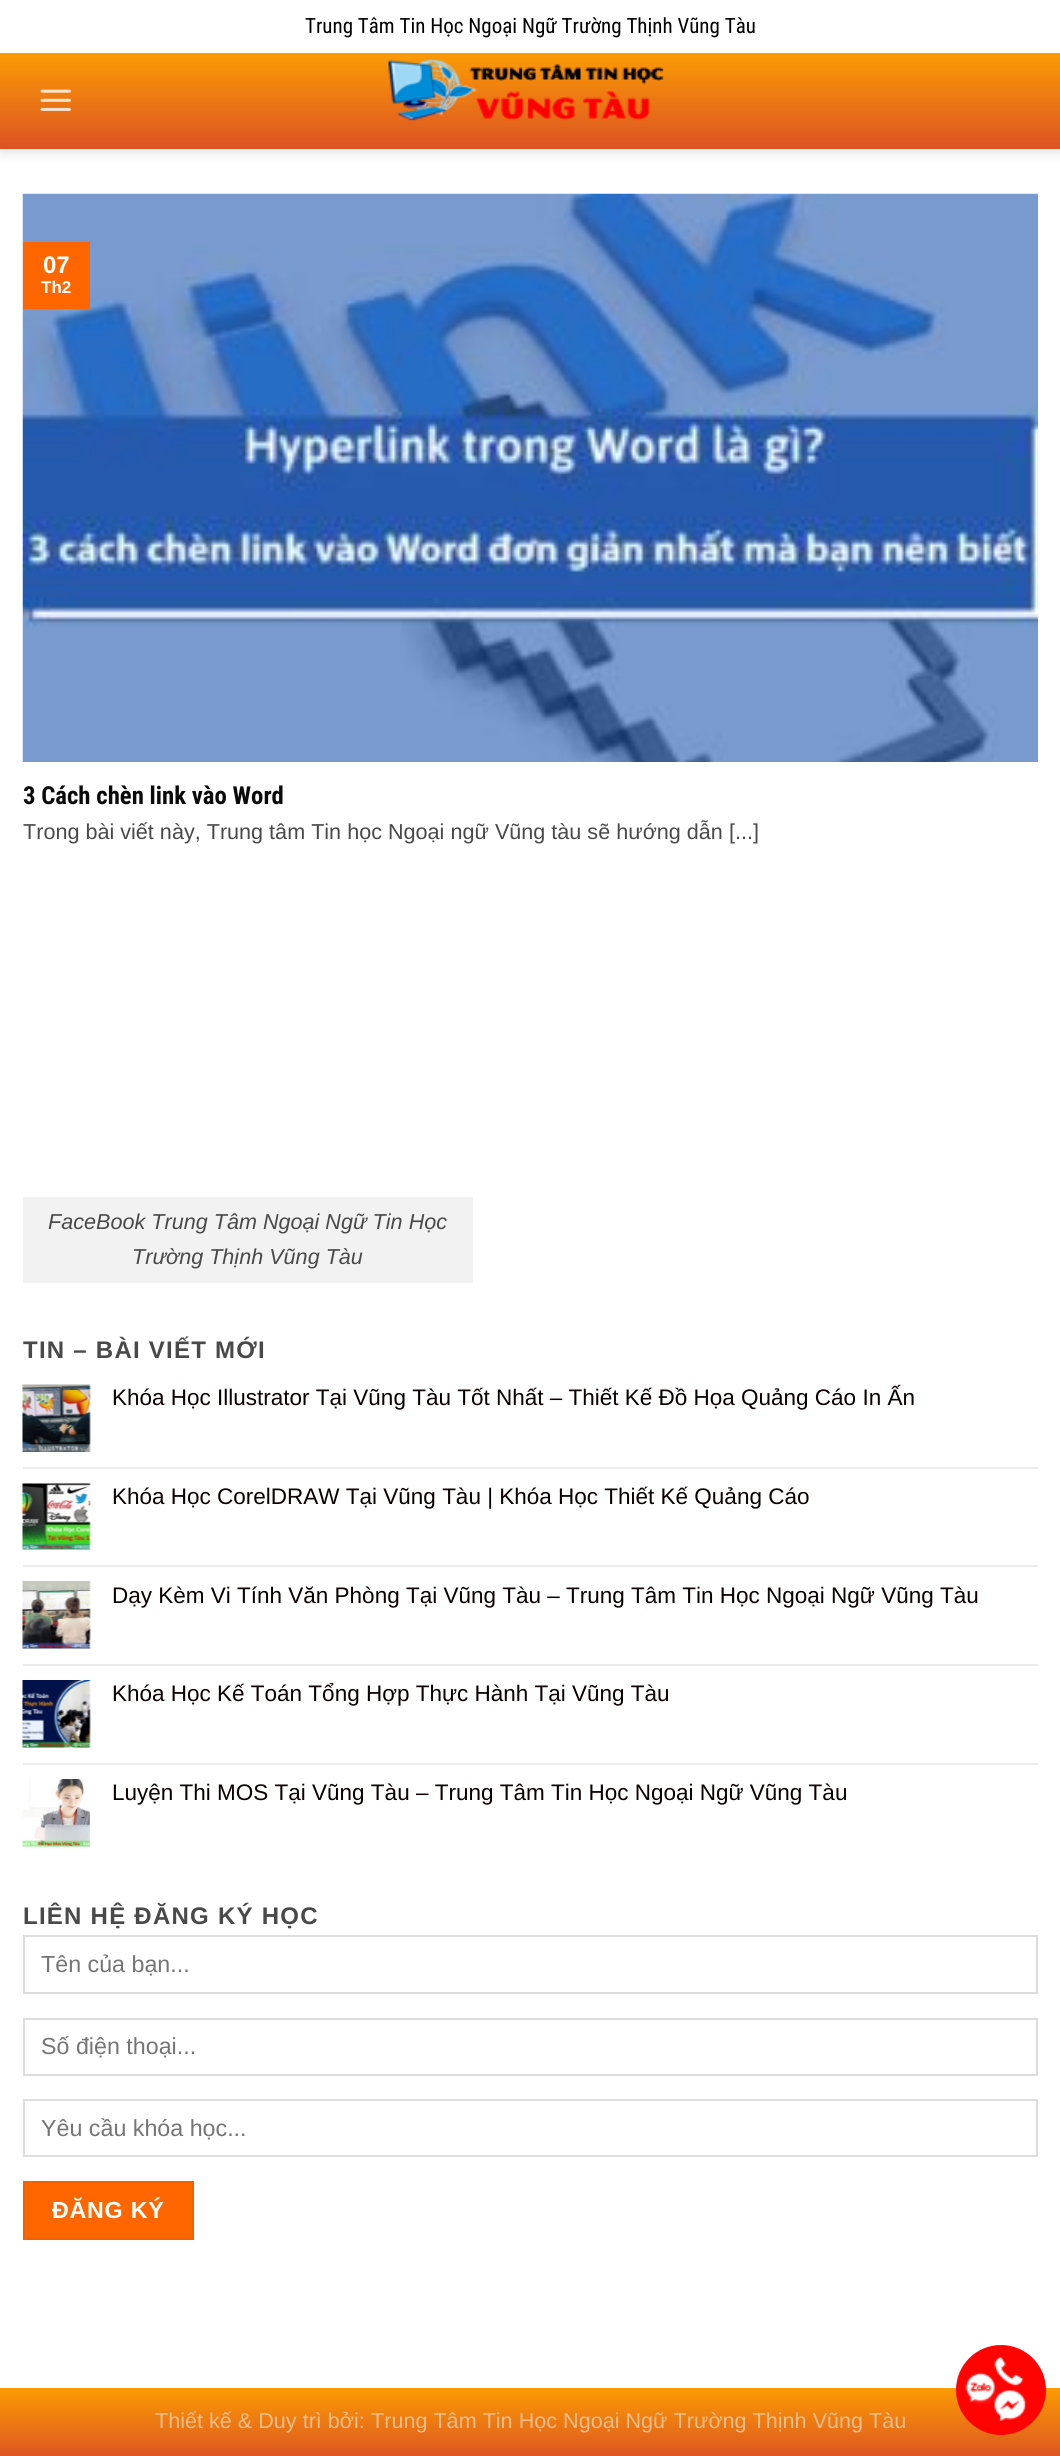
#include <cairo.h>
#include <math.h>
#include <stddef.h>


static void ink(cairo_t *ctx, unsigned color) {
    cairo_set_source_rgb(ctx, (color >> 16) / 255.0, (color >> 8 & 255) / 255.0, (color & 255) / 255.0);
}

static void write_spaced(cairo_t *ctx, double x, double y, const char *s, double letter, double word) {
    cairo_move_to(ctx, x, y);
    while (*s) {
        char ch[5] = {0};
        int n = 0;
        do ch[n++] = *s++; while ((*s & 0xC0) == 0x80);
        cairo_show_text(ctx, ch);
        cairo_rel_move_to(ctx, letter + word * (*ch == ' '), 0);
    }
}

static void round_path(cairo_t *ctx, double x, double y, double w, double h, double r) {
    cairo_new_sub_path(ctx);
    cairo_arc(ctx, x + w - r, y + h - r, r, 0, M_PI / 2);
    cairo_arc(ctx, x + r, y + h - r, r, M_PI / 2, M_PI);
    cairo_arc(ctx, x + r, y + r, r, M_PI, 1.5 * M_PI);
    cairo_arc(ctx, x + w - r, y + r, r, 1.5 * M_PI, 2 * M_PI);
    cairo_close_path(ctx);
}

static void blur_box(cairo_t *ctx, double x, double y, double w, double h, double r, double blur, double alpha) {
    cairo_push_group_with_content(ctx, CAIRO_CONTENT_ALPHA);
    cairo_set_operator(ctx, CAIRO_OPERATOR_SOURCE);
    for (int i = 15; i >= -15 && fmin(w, h) + blur * i / 3 > 0; i -= 2) {
        double e = blur * i / 6;
        cairo_set_source_rgba(ctx, 0, 0, 0, alpha * erfc((i - 1) / 8.5) / 2);
        round_path(ctx, x - e, y - e, w + 2 * e, h + 2 * e, fmax(0, fmin(r + e + blur * .6, fmin(w, h) / 2 + e)));
        cairo_fill(ctx);
    }
    cairo_pattern_t *soft = cairo_pop_group(ctx);
    cairo_mask(ctx, soft);
    cairo_pattern_destroy(soft);
}

static void paste(cairo_t *ctx, const char *path, double x, double y, double w, double h) {
    cairo_surface_t *image = cairo_image_surface_create_from_png(path);
    cairo_save(ctx);
    cairo_set_source_surface(ctx, image, x, y);
    cairo_rectangle(ctx, x, y, w, h);
    cairo_fill(ctx);
    cairo_restore(ctx);
    cairo_surface_destroy(image);
}

int main(void) {
    cairo_surface_t *surface = cairo_image_surface_create(CAIRO_FORMAT_RGB24, 1060, 2456);
    cairo_t *ctx = cairo_create(surface);
    cairo_font_options_t *options = cairo_font_options_create();
    cairo_font_options_set_hint_metrics(options, CAIRO_HINT_METRICS_OFF);
    cairo_font_options_set_hint_style(options, CAIRO_HINT_STYLE_NONE);
    cairo_set_font_options(ctx, options);
    cairo_set_miter_limit(ctx, 4);
    cairo_pattern_t *gradient;
    ink(ctx, 0xFFFFFF);
    cairo_paint(ctx);
    ink(ctx, 0x000000);
    blur_box(ctx, 2, 2, 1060, 148, 0, 7.5, 0.15);
    ink(ctx, 0xFFFFFF);
    cairo_rectangle(ctx, 0, 0, 1060, 53);
    cairo_fill(ctx);
    cairo_select_font_face(ctx, "Roboto Condensed", CAIRO_FONT_SLANT_NORMAL, CAIRO_FONT_WEIGHT_NORMAL);
    cairo_set_font_size(ctx, 21);
    ink(ctx, 0x000000);
    cairo_move_to(ctx, 305, 33);
    cairo_show_text(ctx, "Trung Tâm Tin Học Ngoại Ngữ Trường Thịnh Vũng Tàu");
    gradient = cairo_pattern_create_linear(530, 52, 530, 149);
    cairo_pattern_add_color_stop_rgba(gradient, 0, 0.988, 0.612, 0.012, 1);
    cairo_pattern_add_color_stop_rgba(gradient, 1, 0.863, 0.325, 0.137, 1);
    cairo_set_source(ctx, gradient);
    cairo_pattern_destroy(gradient);
    cairo_rectangle(ctx, 0, 53, 1060, 96);
    cairo_fill(ctx);
    paste(ctx, "media/1.png", 40, 89, 31, 22);
    paste(ctx, "media/2.png", 388, 59, 276, 62);
    paste(ctx, "media/3.png", 22, 193, 1016, 569);
    ink(ctx, 0xFF6600);
    cairo_rectangle(ctx, 23, 242, 67, 67);
    cairo_fill(ctx);
    cairo_select_font_face(ctx, "Liberation Sans", CAIRO_FONT_SLANT_NORMAL, CAIRO_FONT_WEIGHT_BOLD);
    cairo_set_font_size(ctx, 24);
    ink(ctx, 0xFFFFFF);
    cairo_move_to(ctx, 43, 273);
    cairo_show_text(ctx, "07");
    cairo_set_font_size(ctx, 17);
    cairo_move_to(ctx, 41, 293);
    cairo_show_text(ctx, "Th2");
    cairo_select_font_face(ctx, "Roboto Condensed", CAIRO_FONT_SLANT_NORMAL, CAIRO_FONT_WEIGHT_BOLD);
    cairo_set_font_size(ctx, 24.75);
    ink(ctx, 0x0A0A0A);
    cairo_move_to(ctx, 23, 804);
    cairo_show_text(ctx, "3 Cách chèn link vào Word");
    cairo_select_font_face(ctx, "Liberation Sans", CAIRO_FONT_SLANT_NORMAL, CAIRO_FONT_WEIGHT_NORMAL);
    cairo_set_font_size(ctx, 21.6);
    ink(ctx, 0x494949);
    cairo_move_to(ctx, 23, 839);
    cairo_show_text(ctx, "Trong bài viết này, Trung tâm Tin học Ngoại ngữ Vũng tàu sẽ hướng dẫn [...]");
    ink(ctx, 0xF2F2F2);
    cairo_rectangle(ctx, 23, 1197, 450, 86);
    cairo_fill(ctx);
    cairo_select_font_face(ctx, "Liberation Sans", CAIRO_FONT_SLANT_ITALIC, CAIRO_FONT_WEIGHT_NORMAL);
    ink(ctx, 0x494949);
    cairo_move_to(ctx, 48, 1229);
    cairo_show_text(ctx, "FaceBook Trung Tâm Ngoại Ngữ Tin Học");
    cairo_move_to(ctx, 132, 1264);
    cairo_show_text(ctx, "Trường Thịnh Vũng Tàu");
    cairo_select_font_face(ctx, "Liberation Sans", CAIRO_FONT_SLANT_NORMAL, CAIRO_FONT_WEIGHT_BOLD);
    cairo_set_font_size(ctx, 24);
    write_spaced(ctx, 23, 1358, "TIN – BÀI VIẾT MỚI", 1.25, 0);
    paste(ctx, "media/4.png", 22, 1384, 69, 68);
    cairo_select_font_face(ctx, "Liberation Sans", CAIRO_FONT_SLANT_NORMAL, CAIRO_FONT_WEIGHT_NORMAL);
    cairo_set_font_size(ctx, 22.5);
    ink(ctx, 0x0A0000);
    cairo_move_to(ctx, 112, 1405);
    cairo_show_text(ctx, "Khóa Học Illustrator Tại Vũng Tàu Tốt Nhất – Thiết Kế Đồ Họa Quảng Cáo In Ấn");
    ink(ctx, 0xECECEC);
    cairo_rectangle(ctx, 23, 1467, 1015, 2);
    cairo_fill(ctx);
    paste(ctx, "media/5.png", 22, 1483, 69, 67);
    ink(ctx, 0x0A0000);
    cairo_move_to(ctx, 112, 1504);
    cairo_show_text(ctx, "Khóa Học CorelDRAW Tại Vũng Tàu | Khóa Học Thiết Kế Quảng Cáo");
    ink(ctx, 0xECECEC);
    cairo_rectangle(ctx, 23, 1565, 1015, 2);
    cairo_fill(ctx);
    paste(ctx, "media/6.png", 22, 1581, 69, 68);
    ink(ctx, 0x0A0000);
    cairo_move_to(ctx, 112, 1603);
    cairo_show_text(ctx, "Dạy Kèm Vi Tính Văn Phòng Tại Vũng Tàu – Trung Tâm Tin Học Ngoại Ngữ Vũng Tàu");
    ink(ctx, 0xECECEC);
    cairo_rectangle(ctx, 23, 1664, 1015, 2);
    cairo_fill(ctx);
    paste(ctx, "media/7.png", 22, 1680, 69, 68);
    ink(ctx, 0x0A0000);
    cairo_move_to(ctx, 112, 1701);
    cairo_show_text(ctx, "Khóa Học Kế Toán Tổng Hợp Thực Hành Tại Vũng Tàu");
    ink(ctx, 0xECECEC);
    cairo_rectangle(ctx, 23, 1763, 1015, 2);
    cairo_fill(ctx);
    paste(ctx, "media/8.png", 22, 1779, 68, 68);
    ink(ctx, 0x0A0000);
    cairo_move_to(ctx, 112, 1800);
    cairo_show_text(ctx, "Luyện Thi MOS Tại Vũng Tàu – Trung Tâm Tin Học Ngoại Ngữ Vũng Tàu");
    cairo_select_font_face(ctx, "Liberation Sans", CAIRO_FONT_SLANT_NORMAL, CAIRO_FONT_WEIGHT_BOLD);
    cairo_set_font_size(ctx, 24);
    ink(ctx, 0x494949);
    write_spaced(ctx, 23, 1924, "LIÊN HỆ ĐĂNG KÝ HỌC", 1.25, 0);
    cairo_rectangle(ctx, 24, 1936, 1013, 57);
    ink(ctx, 0xDDDDDD);
    cairo_stroke(ctx);
    cairo_select_font_face(ctx, "Liberation Sans", CAIRO_FONT_SLANT_NORMAL, CAIRO_FONT_WEIGHT_NORMAL);
    cairo_set_font_size(ctx, 23.25);
    ink(ctx, 0x757575);
    cairo_move_to(ctx, 41, 1972);
    cairo_show_text(ctx, "Tên của bạn...");
    cairo_rectangle(ctx, 24, 2019, 1013, 56);
    ink(ctx, 0xDDDDDD);
    cairo_stroke(ctx);
    ink(ctx, 0x757575);
    cairo_move_to(ctx, 41, 2054);
    cairo_show_text(ctx, "Số điện thoại...");
    cairo_rectangle(ctx, 24, 2100, 1013, 56);
    ink(ctx, 0xDDDDDD);
    cairo_stroke(ctx);
    ink(ctx, 0x757575);
    cairo_move_to(ctx, 41, 2136);
    cairo_show_text(ctx, "Yêu cầu khóa học...");
    ink(ctx, 0xFF6600);
    cairo_rectangle(ctx, 24, 2182, 169, 57);
    cairo_fill_preserve(ctx);
    ink(ctx, 0xF26100);
    cairo_stroke(ctx);
    cairo_select_font_face(ctx, "Liberation Sans", CAIRO_FONT_SLANT_NORMAL, CAIRO_FONT_WEIGHT_BOLD);
    ink(ctx, 0xFFFFFF);
    write_spaced(ctx, 52, 2218, "ĐĂNG KÝ", 0.75, 0);
    gradient = cairo_pattern_create_linear(530, 2388, 530, 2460);
    cairo_pattern_add_color_stop_rgba(gradient, 0, 0.988, 0.612, 0.012, 1);
    cairo_pattern_add_color_stop_rgba(gradient, 1, 0.863, 0.325, 0.137, 1);
    cairo_set_source(ctx, gradient);
    cairo_pattern_destroy(gradient);
    cairo_rectangle(ctx, 0, 2388, 1060, 68);
    cairo_fill(ctx);
    cairo_select_font_face(ctx, "Liberation Sans", CAIRO_FONT_SLANT_NORMAL, CAIRO_FONT_WEIGHT_NORMAL);
    cairo_set_font_size(ctx, 21.6);
    ink(ctx, 0xF6BD88);
    cairo_move_to(ctx, 155, 2428);
    cairo_show_text(ctx, "Thiết kế & Duy trì bởi:");
    cairo_move_to(ctx, 371, 2428);
    cairo_show_text(ctx, "Trung Tâm Tin Học Ngoại Ngữ Trường Thịnh Vũng Tàu");
    ink(ctx, 0xFF0303);
    cairo_new_path(ctx);
    cairo_arc(ctx, 1001, 2390, 45, 0, 2 * M_PI);
    cairo_fill(ctx);
    paste(ctx, "media/9.png", 965, 2357, 61, 64);
    cairo_surface_write_to_png(surface, "image.png");
    cairo_font_options_destroy(options);
    cairo_destroy(ctx);
    cairo_surface_destroy(surface);
    return 0;
}
